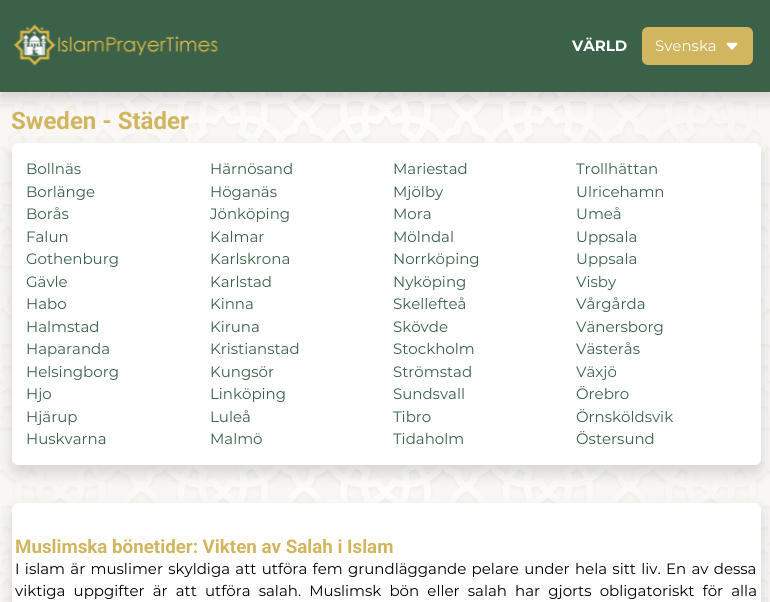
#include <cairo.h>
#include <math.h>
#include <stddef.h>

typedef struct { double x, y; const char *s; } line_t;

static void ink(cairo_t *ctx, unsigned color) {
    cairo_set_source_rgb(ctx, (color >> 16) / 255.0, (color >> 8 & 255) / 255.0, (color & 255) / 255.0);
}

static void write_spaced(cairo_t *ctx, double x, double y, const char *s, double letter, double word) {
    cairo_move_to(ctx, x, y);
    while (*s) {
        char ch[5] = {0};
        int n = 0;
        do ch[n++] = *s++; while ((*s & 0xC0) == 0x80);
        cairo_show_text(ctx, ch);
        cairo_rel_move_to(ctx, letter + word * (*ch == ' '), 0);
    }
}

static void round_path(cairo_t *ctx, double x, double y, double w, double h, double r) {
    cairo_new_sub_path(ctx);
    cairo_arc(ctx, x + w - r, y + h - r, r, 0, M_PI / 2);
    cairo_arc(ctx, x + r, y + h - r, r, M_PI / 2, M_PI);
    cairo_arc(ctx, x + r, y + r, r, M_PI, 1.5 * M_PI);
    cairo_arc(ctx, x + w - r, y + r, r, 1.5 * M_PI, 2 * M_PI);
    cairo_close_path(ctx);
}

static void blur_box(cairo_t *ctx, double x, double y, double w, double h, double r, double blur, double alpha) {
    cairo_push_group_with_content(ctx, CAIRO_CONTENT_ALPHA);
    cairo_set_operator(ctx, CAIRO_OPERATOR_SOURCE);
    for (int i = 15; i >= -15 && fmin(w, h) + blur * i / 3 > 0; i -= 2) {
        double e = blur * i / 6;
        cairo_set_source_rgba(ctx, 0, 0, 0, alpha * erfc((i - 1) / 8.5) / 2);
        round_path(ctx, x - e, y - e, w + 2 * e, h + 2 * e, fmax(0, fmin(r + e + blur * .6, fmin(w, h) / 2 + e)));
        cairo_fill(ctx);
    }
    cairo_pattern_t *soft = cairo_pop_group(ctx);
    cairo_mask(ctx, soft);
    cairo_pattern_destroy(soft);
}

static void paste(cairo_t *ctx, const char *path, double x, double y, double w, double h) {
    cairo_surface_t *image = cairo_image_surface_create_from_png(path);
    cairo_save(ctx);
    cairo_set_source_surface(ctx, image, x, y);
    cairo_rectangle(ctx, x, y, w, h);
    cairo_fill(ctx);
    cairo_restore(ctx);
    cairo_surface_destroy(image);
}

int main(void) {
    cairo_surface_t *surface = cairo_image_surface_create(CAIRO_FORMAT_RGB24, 770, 602);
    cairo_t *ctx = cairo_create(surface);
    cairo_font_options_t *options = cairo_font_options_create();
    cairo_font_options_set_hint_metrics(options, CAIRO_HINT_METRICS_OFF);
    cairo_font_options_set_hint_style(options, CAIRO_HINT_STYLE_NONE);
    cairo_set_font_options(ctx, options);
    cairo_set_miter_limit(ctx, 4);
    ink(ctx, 0xFFFFFF);
    cairo_paint(ctx);
    paste(ctx, "media/3.png", 0, 92, 770, 510);
    ink(ctx, 0x000000);
    blur_box(ctx, 0, 8, 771, 91, 0, 7.5, 0.15);
    ink(ctx, 0x3B6149);
    cairo_rectangle(ctx, 0, 0, 770, 92);
    cairo_fill(ctx);
    paste(ctx, "media/1.png", 13, 24, 206, 42);
    cairo_select_font_face(ctx, "Montserrat", CAIRO_FONT_SLANT_NORMAL, CAIRO_FONT_WEIGHT_BOLD);
    cairo_set_font_size(ctx, 15);
    ink(ctx, 0xFFFFFF);
    cairo_move_to(ctx, 572, 51);
    cairo_show_text(ctx, "VÄRLD");
    ink(ctx, 0xD2B55F);
    round_path(ctx, 643, 28, 109, 36, 5);
    cairo_fill_preserve(ctx);
    cairo_stroke(ctx);
    cairo_select_font_face(ctx, "Montserrat", CAIRO_FONT_SLANT_NORMAL, CAIRO_FONT_WEIGHT_NORMAL);
    ink(ctx, 0xFFFFFF);
    cairo_move_to(ctx, 655, 51);
    cairo_show_text(ctx, "Svenska");
    paste(ctx, "media/2.png", 726, 42, 12, 8);
    cairo_select_font_face(ctx, "Roboto", CAIRO_FONT_SLANT_NORMAL, CAIRO_FONT_WEIGHT_BOLD);
    cairo_set_font_size(ctx, 24);
    ink(ctx, 0xD2B55F);
    cairo_move_to(ctx, 11, 129);
    cairo_show_text(ctx, "Sweden - Städer");
    ink(ctx, 0x000000);
    blur_box(ctx, 12, 150, 749, 323, 6, 7.5, 0.15);
    ink(ctx, 0xFFFFFF);
    round_path(ctx, 12, 143, 749, 322, 6);
    cairo_fill(ctx);
    cairo_select_font_face(ctx, "Montserrat", CAIRO_FONT_SLANT_NORMAL, CAIRO_FONT_WEIGHT_NORMAL);
    cairo_set_font_size(ctx, 15);
    ink(ctx, 0x3B6149);
    {
        static const line_t items[] = {
            {26, 174, "Bollnäs"},
            {210, 174, "Härnösand"},
            {393, 174, "Mariestad"},
            {576, 174, "Trollhättan"},
            {26, 197, "Borlänge"},
            {210, 197, "Höganäs"},
            {393, 197, "Mjölby"},
            {576, 197, "Ulricehamn"},
            {26, 219, "Borås"},
            {210, 219, "Jönköping"},
            {393, 219, "Mora"},
            {576, 219, "Umeå"},
            {26, 242, "Falun"},
            {210, 242, "Kalmar"},
            {393, 242, "Mölndal"},
            {576, 242, "Uppsala"},
            {26, 264, "Gothenburg"},
            {210, 264, "Karlskrona"},
            {393, 264, "Norrköping"},
            {576, 264, "Uppsala"},
            {26, 287, "Gävle"},
            {210, 287, "Karlstad"},
            {393, 287, "Nyköping"},
            {576, 287, "Visby"},
            {26, 309, "Habo"},
            {210, 309, "Kinna"},
            {393, 309, "Skellefteå"},
            {576, 309, "Vårgårda"},
            {26, 332, "Halmstad"},
            {210, 332, "Kiruna"},
            {393, 332, "Skövde"},
            {576, 332, "Vänersborg"},
            {26, 354, "Haparanda"},
            {210, 354, "Kristianstad"},
            {393, 354, "Stockholm"},
            {576, 354, "Västerås"},
            {26, 377, "Helsingborg"},
            {210, 377, "Kungsör"},
            {393, 377, "Strömstad"},
            {576, 377, "Växjö"},
            {26, 399, "Hjo"},
            {210, 399, "Linköping"},
            {393, 399, "Sundsvall"},
            {576, 399, "Örebro"},
            {26, 422, "Hjärup"},
            {210, 422, "Luleå"},
            {393, 422, "Tibro"},
            {576, 422, "Örnsköldsvik"},
            {26, 444, "Huskvarna"},
            {210, 444, "Malmö"},
            {393, 444, "Tidaholm"},
            {576, 444, "Östersund"},
        };
        for (size_t i = 0; i < sizeof items / sizeof *items; i++) {
            cairo_move_to(ctx, items[i].x, items[i].y);
            cairo_show_text(ctx, items[i].s);
        }
    }
    ink(ctx, 0x000000);
    blur_box(ctx, 12, 510, 749, 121, 6, 7.5, 0.15);
    ink(ctx, 0xFFFFFF);
    round_path(ctx, 12, 503, 749, 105, 6);
    cairo_fill(ctx);
    cairo_select_font_face(ctx, "Roboto", CAIRO_FONT_SLANT_NORMAL, CAIRO_FONT_WEIGHT_BOLD);
    cairo_set_font_size(ctx, 18.75);
    ink(ctx, 0xD2B55F);
    cairo_move_to(ctx, 15, 553);
    cairo_show_text(ctx, "Muslimska bönetider: Vikten av Salah i Islam");
    cairo_select_font_face(ctx, "Montserrat", CAIRO_FONT_SLANT_NORMAL, CAIRO_FONT_WEIGHT_NORMAL);
    cairo_set_font_size(ctx, 15);
    ink(ctx, 0x000000);
    write_spaced(ctx, 15, 574, "I islam är muslimer skyldiga att utföra fem grundläggande pelare under hela sitt liv. En av dessa", 0, 1.4);
    write_spaced(ctx, 15, 596, "viktiga uppgifter är att utföra salah. Muslimsk bön eller salah har gjorts obligatoriskt för alla", 0, 4.25);
    cairo_surface_write_to_png(surface, "image.png");
    cairo_font_options_destroy(options);
    cairo_destroy(ctx);
    cairo_surface_destroy(surface);
    return 0;
}
